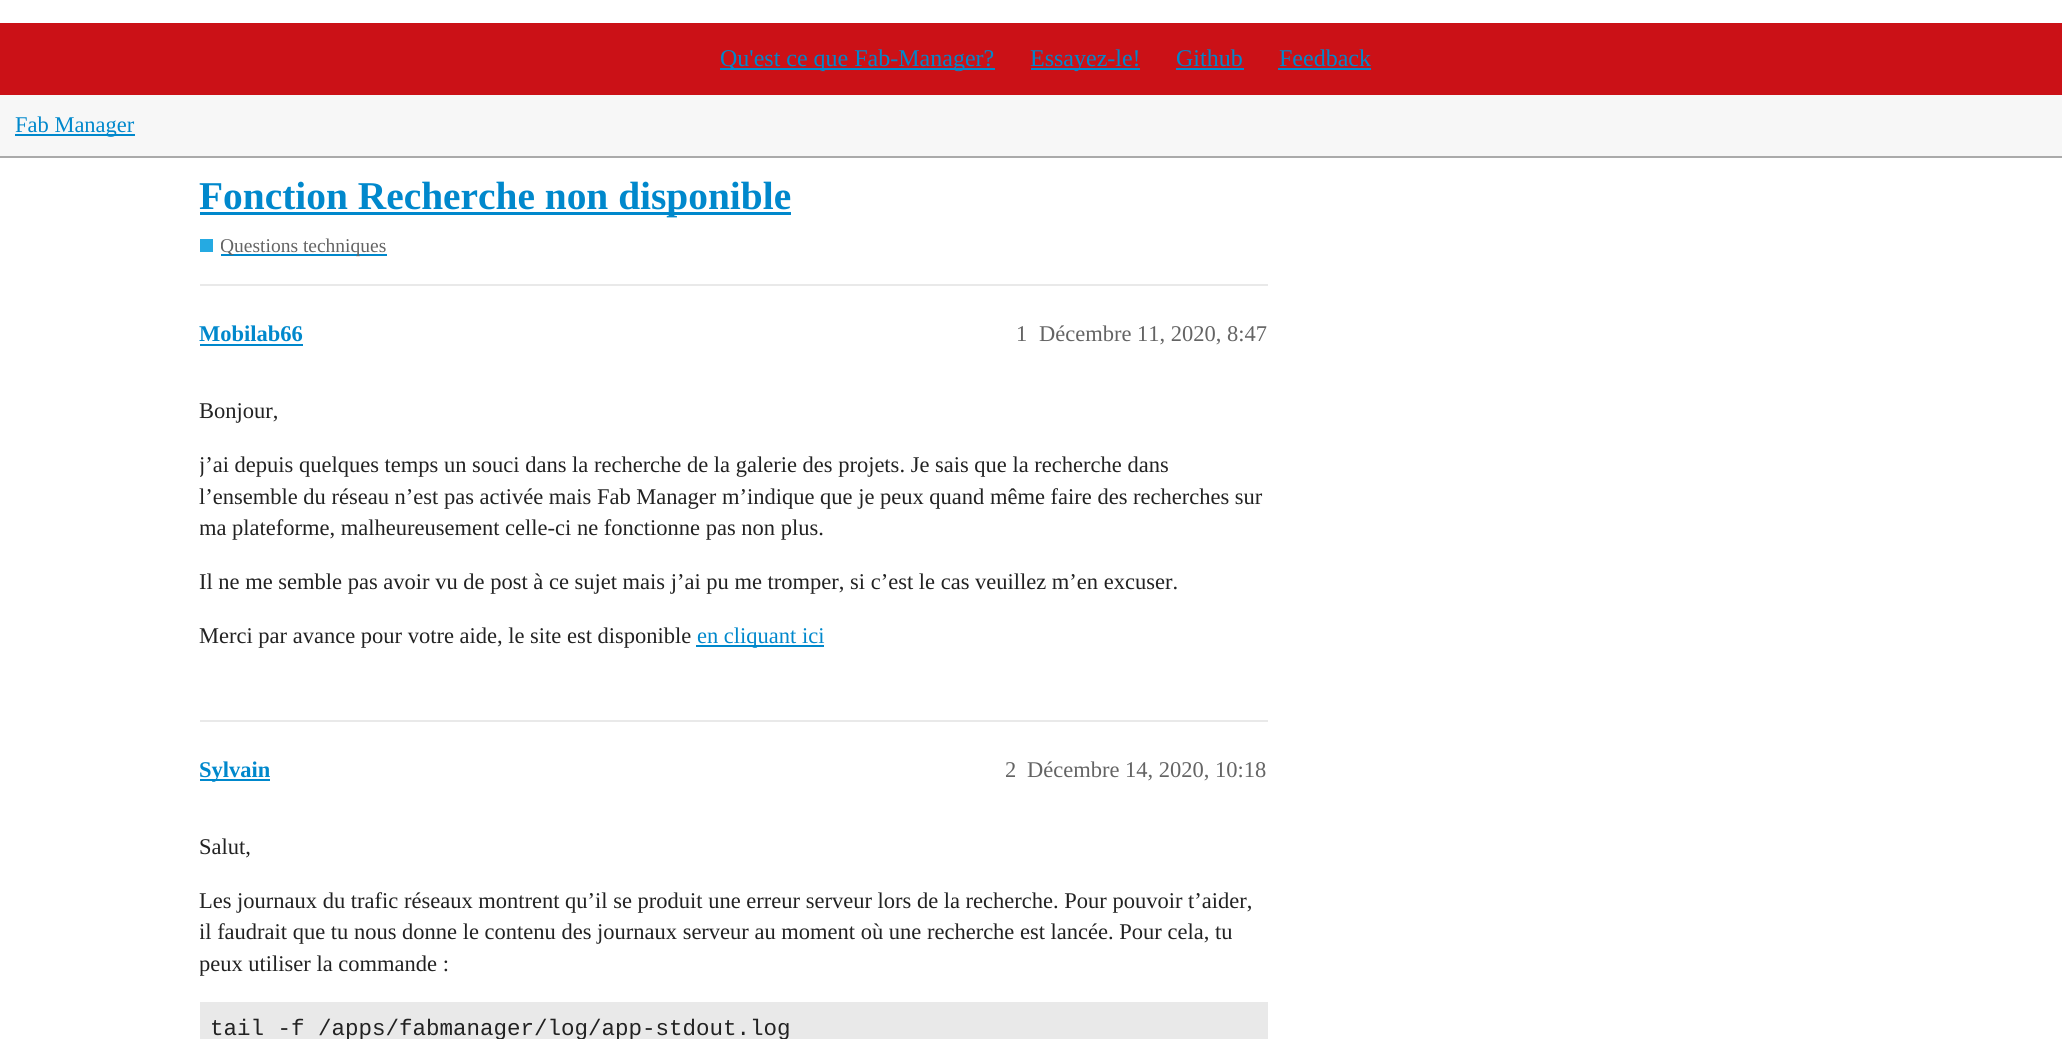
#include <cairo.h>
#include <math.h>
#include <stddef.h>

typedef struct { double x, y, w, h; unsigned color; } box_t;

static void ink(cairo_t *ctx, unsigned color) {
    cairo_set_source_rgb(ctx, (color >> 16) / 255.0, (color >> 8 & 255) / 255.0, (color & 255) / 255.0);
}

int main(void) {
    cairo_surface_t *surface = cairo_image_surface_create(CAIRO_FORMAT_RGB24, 2062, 1039);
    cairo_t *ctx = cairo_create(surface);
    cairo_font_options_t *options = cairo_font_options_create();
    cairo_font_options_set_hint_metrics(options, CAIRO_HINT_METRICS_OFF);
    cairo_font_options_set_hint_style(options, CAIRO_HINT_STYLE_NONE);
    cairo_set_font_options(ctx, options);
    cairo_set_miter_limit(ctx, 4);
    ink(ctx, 0xFFFFFF);
    cairo_paint(ctx);
    ink(ctx, 0xCB1117);
    cairo_rectangle(ctx, 0, 23, 2062, 72);
    cairo_fill(ctx);
    ink(ctx, 0x0088CC);
    cairo_rectangle(ctx, 720, 68, 275, 2);
    cairo_fill(ctx);
    cairo_select_font_face(ctx, "Liberation Serif", CAIRO_FONT_SLANT_NORMAL, CAIRO_FONT_WEIGHT_NORMAL);
    cairo_set_font_size(ctx, 24);
    cairo_move_to(ctx, 720, 66);
    cairo_show_text(ctx, "Qu'est ce que Fab-Manager?");
    cairo_rectangle(ctx, 1031, 68, 109, 2);
    cairo_fill(ctx);
    cairo_move_to(ctx, 1030, 66);
    cairo_show_text(ctx, "Essayez-le!");
    cairo_move_to(ctx, 1176, 66);
    cairo_show_text(ctx, "Github");
    cairo_rectangle(ctx, 1176, 68, 68, 2);
    cairo_fill(ctx);
    cairo_move_to(ctx, 1279, 66);
    cairo_show_text(ctx, "Feedback");
    {
        static const box_t items[] = {
            {1278, 68, 93, 2, 0x0088CC},
            {0, 95, 2062, 61, 0xF7F7F7},
            {0, 156, 2062, 2, 0xAAAAAA},
            {15, 134, 120, 2, 0x0088CC},
        };
        for (size_t i = 0; i < sizeof items / sizeof *items; i++) {
            ink(ctx, items[i].color);
            cairo_rectangle(ctx, items[i].x, items[i].y, items[i].w, items[i].h);
            cairo_fill(ctx);
        }
    }
    cairo_set_font_size(ctx, 22.5);
    cairo_move_to(ctx, 15, 132);
    cairo_show_text(ctx, "Fab Manager");
    cairo_rectangle(ctx, 200, 212, 591, 3);
    cairo_fill(ctx);
    cairo_select_font_face(ctx, "Liberation Serif", CAIRO_FONT_SLANT_NORMAL, CAIRO_FONT_WEIGHT_BOLD);
    cairo_set_font_size(ctx, 39.4);
    cairo_move_to(ctx, 199, 209);
    cairo_show_text(ctx, "Fonction Recherche non disponible");
    ink(ctx, 0x25AAE2);
    cairo_rectangle(ctx, 200, 239, 13, 13);
    cairo_fill(ctx);
    ink(ctx, 0x0088CC);
    cairo_rectangle(ctx, 221, 254, 166, 2);
    cairo_fill(ctx);
    cairo_save(ctx);
    cairo_rectangle(ctx, 221, 233, 166, 27);
    cairo_clip(ctx);
    cairo_select_font_face(ctx, "Liberation Serif", CAIRO_FONT_SLANT_NORMAL, CAIRO_FONT_WEIGHT_NORMAL);
    cairo_set_font_size(ctx, 19.5);
    ink(ctx, 0x646464);
    cairo_move_to(ctx, 220, 252);
    cairo_show_text(ctx, "Questions techniques");
    cairo_restore(ctx);
    ink(ctx, 0xE9E9E9);
    cairo_rectangle(ctx, 200, 284, 1068, 2);
    cairo_fill(ctx);
    cairo_set_font_size(ctx, 22.5);
    ink(ctx, 0x0088CC);
    cairo_move_to(ctx, 199, 341);
    cairo_show_text(ctx, "Mobilab66");
    cairo_rectangle(ctx, 200, 344, 103, 2);
    cairo_fill(ctx);
    cairo_select_font_face(ctx, "Liberation Serif", CAIRO_FONT_SLANT_NORMAL, CAIRO_FONT_WEIGHT_NORMAL);
    ink(ctx, 0x646464);
    cairo_move_to(ctx, 1016, 341);
    cairo_show_text(ctx, "1");
    cairo_move_to(ctx, 1039, 341);
    cairo_show_text(ctx, "Décembre 11, 2020, 8:47");
    ink(ctx, 0x222222);
    cairo_move_to(ctx, 199, 418);
    cairo_show_text(ctx, "Bonjour,");
    cairo_save(ctx);
    cairo_rectangle(ctx, 200, 374, 1068, 301);
    cairo_clip(ctx);
    cairo_move_to(ctx, 199, 472);
    cairo_show_text(ctx, "j’ai depuis quelques temps un souci dans la recherche de la galerie des projets. Je sais que la recherche dans");
    cairo_restore(ctx);
    cairo_move_to(ctx, 199, 504);
    cairo_show_text(ctx, "l’ensemble du réseau n’est pas activée mais Fab Manager m’indique que je peux quand même faire des recherches sur");
    cairo_save(ctx);
    cairo_rectangle(ctx, 200, 374, 1068, 301);
    cairo_clip(ctx);
    cairo_move_to(ctx, 199, 535);
    cairo_show_text(ctx, "ma plateforme, malheureusement celle-ci ne fonctionne pas non plus.");
    cairo_restore(ctx);
    cairo_move_to(ctx, 199, 589);
    cairo_show_text(ctx, "Il ne me semble pas avoir vu de post à ce sujet mais j’ai pu me tromper, si c’est le cas veuillez m’en excuser.");
    cairo_move_to(ctx, 199, 643);
    cairo_show_text(ctx, "Merci par avance pour votre aide, le site est disponible");
    ink(ctx, 0x0088CC);
    cairo_rectangle(ctx, 696, 645, 128, 2);
    cairo_fill(ctx);
    cairo_move_to(ctx, 697, 643);
    cairo_show_text(ctx, "en cliquant ici");
    ink(ctx, 0xE9E9E9);
    cairo_rectangle(ctx, 200, 720, 1068, 2);
    cairo_fill(ctx);
    ink(ctx, 0x0088CC);
    cairo_rectangle(ctx, 200, 779, 70, 2);
    cairo_fill(ctx);
    cairo_select_font_face(ctx, "Liberation Serif", CAIRO_FONT_SLANT_NORMAL, CAIRO_FONT_WEIGHT_BOLD);
    cairo_move_to(ctx, 199, 777);
    cairo_show_text(ctx, "Sylvain");
    cairo_select_font_face(ctx, "Liberation Serif", CAIRO_FONT_SLANT_NORMAL, CAIRO_FONT_WEIGHT_NORMAL);
    ink(ctx, 0x646464);
    cairo_move_to(ctx, 1005, 777);
    cairo_show_text(ctx, "2");
    cairo_move_to(ctx, 1027, 777);
    cairo_show_text(ctx, "Décembre 14, 2020, 10:18");
    ink(ctx, 0x222222);
    cairo_move_to(ctx, 199, 854);
    cairo_show_text(ctx, "Salut,");
    cairo_move_to(ctx, 199, 908);
    cairo_show_text(ctx, "Les journaux du trafic réseaux montrent qu’il se produit une erreur serveur lors de la recherche. Pour pouvoir t’aider,");
    cairo_save(ctx);
    cairo_rectangle(ctx, 200, 809, 1068, 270);
    cairo_clip(ctx);
    cairo_move_to(ctx, 199, 939);
    cairo_show_text(ctx, "il faudrait que tu nous donne le contenu des journaux serveur au moment où une recherche est lancée. Pour cela, tu");
    cairo_move_to(ctx, 199, 971);
    cairo_show_text(ctx, "peux utiliser la commande :");
    cairo_restore(ctx);
    ink(ctx, 0xE9E9E9);
    cairo_rectangle(ctx, 200, 1002, 1068, 37);
    cairo_fill(ctx);
    cairo_select_font_face(ctx, "Liberation Mono", CAIRO_FONT_SLANT_NORMAL, CAIRO_FONT_WEIGHT_NORMAL);
    ink(ctx, 0x222222);
    cairo_move_to(ctx, 210, 1035);
    cairo_show_text(ctx, "tail -f /apps/fabmanager/log/app-stdout.log");
    cairo_surface_write_to_png(surface, "image.png");
    cairo_font_options_destroy(options);
    cairo_destroy(ctx);
    cairo_surface_destroy(surface);
    return 0;
}
